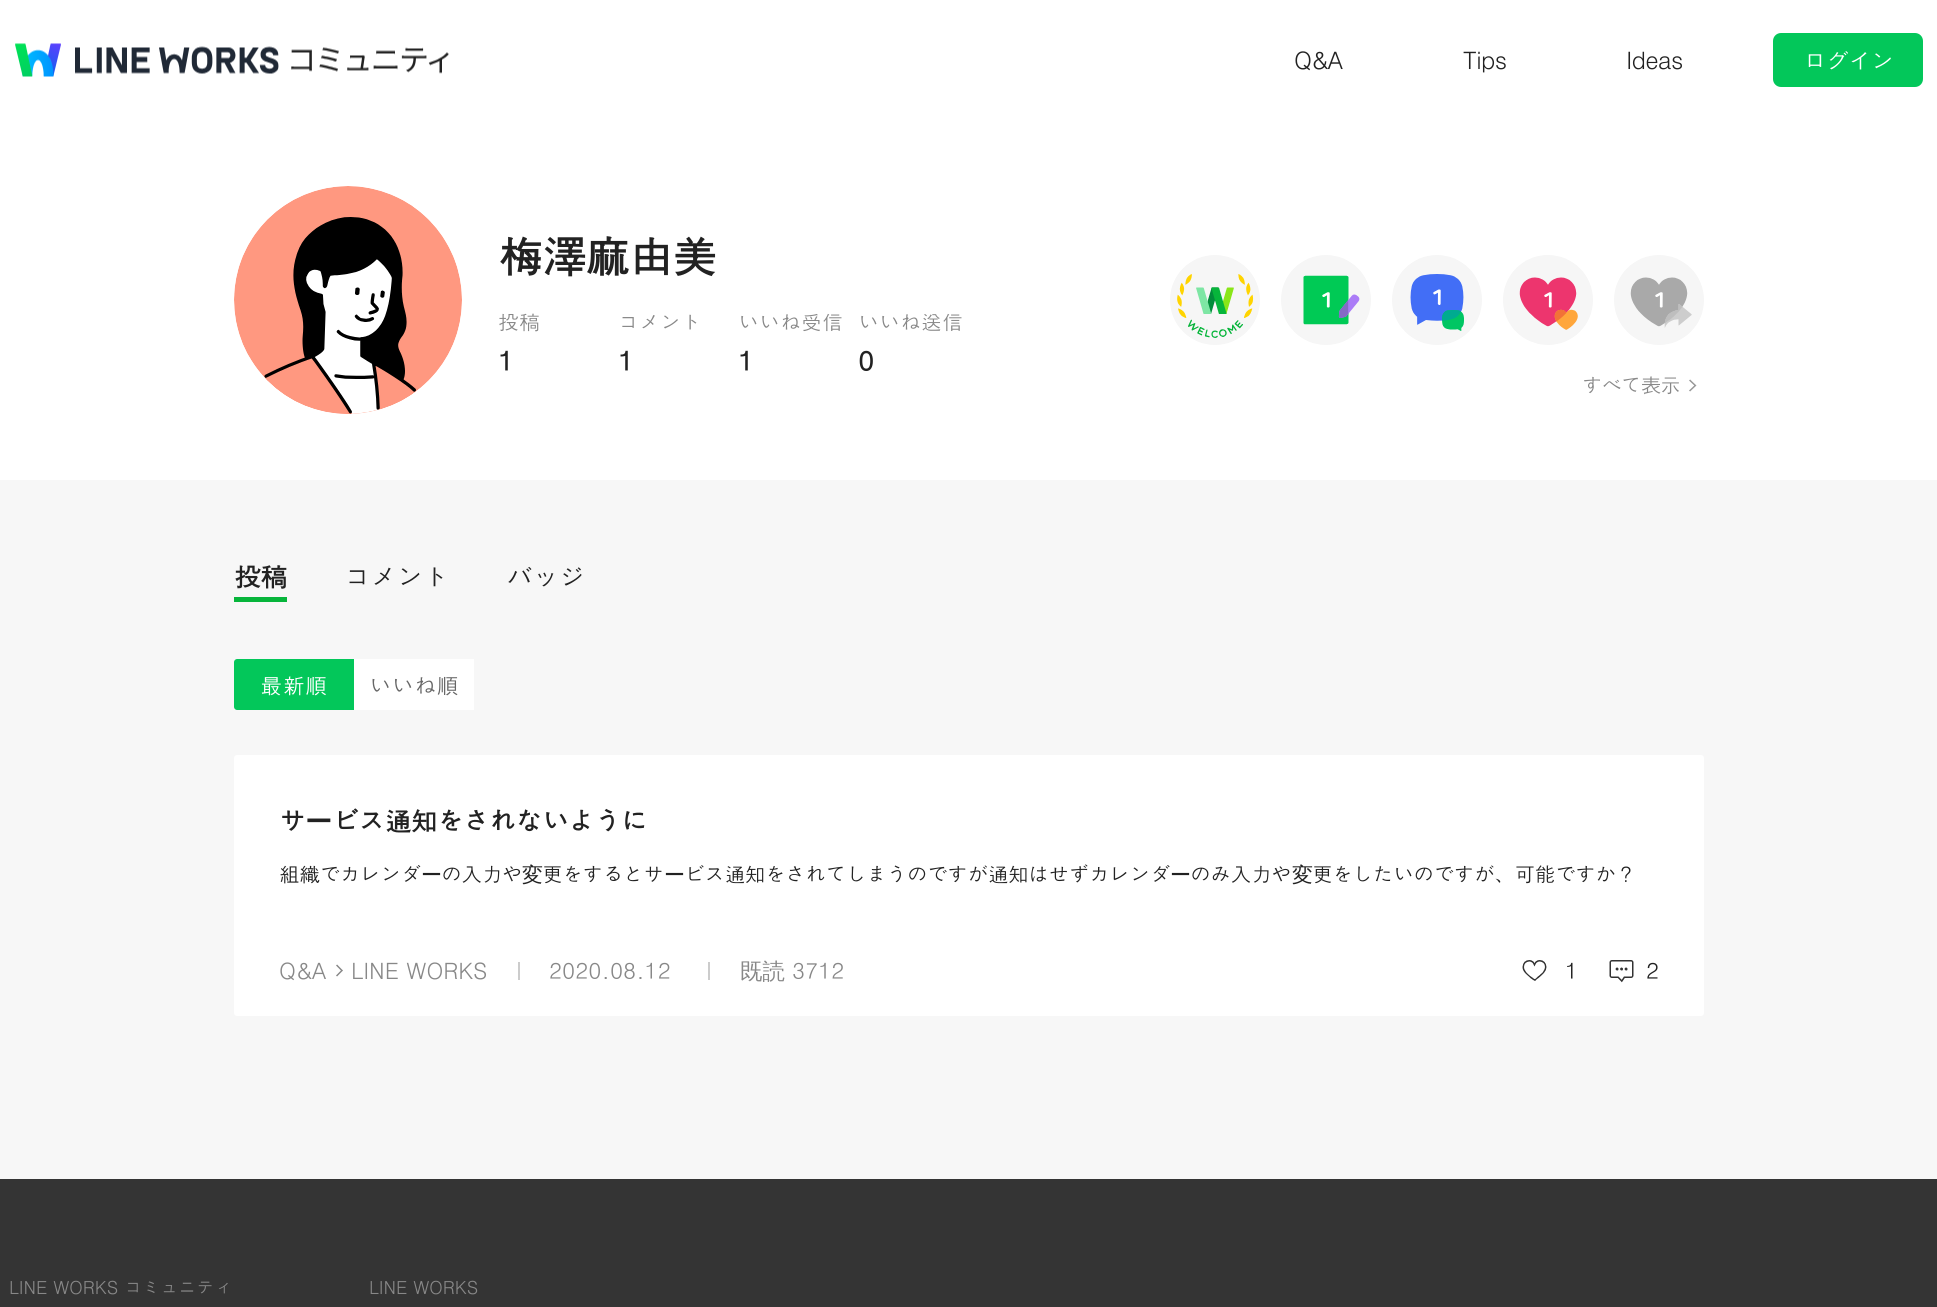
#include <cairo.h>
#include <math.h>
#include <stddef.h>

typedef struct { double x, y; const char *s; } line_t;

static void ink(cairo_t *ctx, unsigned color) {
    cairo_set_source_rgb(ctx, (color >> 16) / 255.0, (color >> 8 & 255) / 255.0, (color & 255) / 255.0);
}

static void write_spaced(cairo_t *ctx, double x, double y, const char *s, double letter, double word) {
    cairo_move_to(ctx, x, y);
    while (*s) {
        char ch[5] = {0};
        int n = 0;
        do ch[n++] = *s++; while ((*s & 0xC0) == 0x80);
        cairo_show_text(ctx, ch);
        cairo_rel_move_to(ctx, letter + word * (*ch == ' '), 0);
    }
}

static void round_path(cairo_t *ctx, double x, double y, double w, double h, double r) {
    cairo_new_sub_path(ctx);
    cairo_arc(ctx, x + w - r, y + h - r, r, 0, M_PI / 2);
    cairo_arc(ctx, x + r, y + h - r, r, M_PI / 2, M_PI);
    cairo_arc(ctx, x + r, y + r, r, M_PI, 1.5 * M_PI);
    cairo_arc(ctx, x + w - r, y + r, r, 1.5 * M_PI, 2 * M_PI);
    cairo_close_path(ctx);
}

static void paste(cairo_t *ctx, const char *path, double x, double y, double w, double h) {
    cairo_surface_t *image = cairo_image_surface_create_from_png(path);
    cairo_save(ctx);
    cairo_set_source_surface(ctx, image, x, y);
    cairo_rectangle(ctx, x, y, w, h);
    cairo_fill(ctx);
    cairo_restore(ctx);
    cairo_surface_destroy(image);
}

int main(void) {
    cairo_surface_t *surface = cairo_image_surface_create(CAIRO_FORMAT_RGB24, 1937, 1307);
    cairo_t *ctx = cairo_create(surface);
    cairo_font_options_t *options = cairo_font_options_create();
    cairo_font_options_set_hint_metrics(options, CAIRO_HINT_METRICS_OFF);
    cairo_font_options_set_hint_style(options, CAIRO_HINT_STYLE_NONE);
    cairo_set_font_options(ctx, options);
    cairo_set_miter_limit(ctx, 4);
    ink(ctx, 0xFFFFFF);
    cairo_paint(ctx);
    paste(ctx, "media/1.png", 15, 43, 264, 34);
    paste(ctx, "media/2.png", 291, 47, 158, 27);
    cairo_select_font_face(ctx, "Dotum", CAIRO_FONT_SLANT_NORMAL, CAIRO_FONT_WEIGHT_NORMAL);
    cairo_set_font_size(ctx, 24);
    ink(ctx, 0x222222);
    {
        static const line_t items[] = {
            {1294, 69, "Q&A"},
            {1463, 69, "Tips"},
            {1626, 69, "Ideas"},
        };
        for (size_t i = 0; i < sizeof items / sizeof *items; i++) {
            write_spaced(ctx, items[i].x, items[i].y, items[i].s, -0.75, 0);
        }
    }
    ink(ctx, 0x03C75A);
    round_path(ctx, 1774, 34, 148, 52, 7);
    cairo_fill_preserve(ctx);
    cairo_stroke(ctx);
    ink(ctx, 0xFFFFFF);
    write_spaced(ctx, 1803, 70, "ログイン", -1.5, 0);
    ink(ctx, 0xF7F7F7);
    cairo_rectangle(ctx, 0, 480, 1937, 699);
    cairo_fill(ctx);
    paste(ctx, "media/3.png", 234, 186, 228, 228);
    cairo_select_font_face(ctx, "Dotum", CAIRO_FONT_SLANT_NORMAL, CAIRO_FONT_WEIGHT_BOLD);
    cairo_set_font_size(ctx, 45);
    ink(ctx, 0x222222);
    write_spaced(ctx, 498, 273, "梅澤麻由美", -1.5, 0);
    cairo_select_font_face(ctx, "Dotum", CAIRO_FONT_SLANT_NORMAL, CAIRO_FONT_WEIGHT_NORMAL);
    cairo_set_font_size(ctx, 21);
    ink(ctx, 0x888888);
    cairo_move_to(ctx, 498, 330);
    cairo_show_text(ctx, "投稿");
    cairo_select_font_face(ctx, "Dotum", CAIRO_FONT_SLANT_NORMAL, CAIRO_FONT_WEIGHT_BOLD);
    cairo_set_font_size(ctx, 27);
    ink(ctx, 0x222222);
    cairo_move_to(ctx, 498, 371);
    cairo_show_text(ctx, "1");
    cairo_select_font_face(ctx, "Dotum", CAIRO_FONT_SLANT_NORMAL, CAIRO_FONT_WEIGHT_NORMAL);
    cairo_set_font_size(ctx, 21);
    ink(ctx, 0x888888);
    cairo_move_to(ctx, 618, 330);
    cairo_show_text(ctx, "コメント");
    cairo_select_font_face(ctx, "Dotum", CAIRO_FONT_SLANT_NORMAL, CAIRO_FONT_WEIGHT_BOLD);
    cairo_set_font_size(ctx, 27);
    ink(ctx, 0x222222);
    cairo_move_to(ctx, 618, 371);
    cairo_show_text(ctx, "1");
    cairo_select_font_face(ctx, "Dotum", CAIRO_FONT_SLANT_NORMAL, CAIRO_FONT_WEIGHT_NORMAL);
    cairo_set_font_size(ctx, 21);
    ink(ctx, 0x888888);
    cairo_move_to(ctx, 738, 330);
    cairo_show_text(ctx, "いいね受信");
    cairo_select_font_face(ctx, "Dotum", CAIRO_FONT_SLANT_NORMAL, CAIRO_FONT_WEIGHT_BOLD);
    cairo_set_font_size(ctx, 27);
    ink(ctx, 0x222222);
    cairo_move_to(ctx, 738, 371);
    cairo_show_text(ctx, "1");
    cairo_select_font_face(ctx, "Dotum", CAIRO_FONT_SLANT_NORMAL, CAIRO_FONT_WEIGHT_NORMAL);
    cairo_set_font_size(ctx, 21);
    ink(ctx, 0x888888);
    cairo_move_to(ctx, 858, 330);
    cairo_show_text(ctx, "いいね送信");
    cairo_select_font_face(ctx, "Dotum", CAIRO_FONT_SLANT_NORMAL, CAIRO_FONT_WEIGHT_BOLD);
    cairo_set_font_size(ctx, 27);
    ink(ctx, 0x222222);
    cairo_move_to(ctx, 858, 371);
    cairo_show_text(ctx, "0");
    paste(ctx, "media/4.png", 1170, 255, 90, 90);
    paste(ctx, "media/5.png", 1281, 255, 90, 90);
    paste(ctx, "media/6.png", 1392, 255, 90, 90);
    paste(ctx, "media/7.png", 1503, 255, 90, 90);
    paste(ctx, "media/8.png", 1614, 255, 90, 90);
    cairo_select_font_face(ctx, "Dotum", CAIRO_FONT_SLANT_NORMAL, CAIRO_FONT_WEIGHT_NORMAL);
    cairo_set_font_size(ctx, 21);
    ink(ctx, 0x888888);
    write_spaced(ctx, 1582, 393, "すべて表示", -1.5, 0);
    paste(ctx, "media/9.png", 1689, 379, 8, 13);
    cairo_select_font_face(ctx, "Dotum", CAIRO_FONT_SLANT_NORMAL, CAIRO_FONT_WEIGHT_BOLD);
    cairo_set_font_size(ctx, 27);
    ink(ctx, 0x222222);
    write_spaced(ctx, 234, 587, "投稿", -0.75, 0);
    ink(ctx, 0x07B53B);
    cairo_rectangle(ctx, 234, 597, 53, 5);
    cairo_fill(ctx);
    cairo_select_font_face(ctx, "Dotum", CAIRO_FONT_SLANT_NORMAL, CAIRO_FONT_WEIGHT_NORMAL);
    ink(ctx, 0x222222);
    write_spaced(ctx, 344, 587, "コメント", -0.75, 0);
    write_spaced(ctx, 506, 587, "バッジ", -0.75, 0);
    ink(ctx, 0x03C75A);
    cairo_new_path(ctx);
    cairo_move_to(ctx, 237, 659);
    cairo_line_to(ctx, 354, 659);
    cairo_line_to(ctx, 354, 710);
    cairo_line_to(ctx, 237, 710);
    cairo_curve_to(ctx, 235.5, 710, 234, 708.5, 234, 707);
    cairo_line_to(ctx, 234, 662);
    cairo_curve_to(ctx, 234, 660.5, 235.5, 659, 237, 659);
    cairo_close_path(ctx);
    cairo_fill(ctx);
    cairo_set_font_size(ctx, 22.5);
    ink(ctx, 0xFFFFFF);
    cairo_move_to(ctx, 260, 694);
    cairo_show_text(ctx, "最新順");
    cairo_rectangle(ctx, 354, 659, 120, 51);
    cairo_fill(ctx);
    ink(ctx, 0x666666);
    cairo_move_to(ctx, 369, 694);
    cairo_show_text(ctx, "いいね順");
    ink(ctx, 0xFFFFFF);
    round_path(ctx, 234, 755, 1470, 261, 3);
    cairo_fill(ctx);
    cairo_select_font_face(ctx, "Dotum", CAIRO_FONT_SLANT_NORMAL, CAIRO_FONT_WEIGHT_BOLD);
    cairo_set_font_size(ctx, 27);
    ink(ctx, 0x222222);
    write_spaced(ctx, 279, 831, "サ", -0.75, 0);
    cairo_select_font_face(ctx, "WenQuanYi Zen Hei", CAIRO_FONT_SLANT_NORMAL, CAIRO_FONT_WEIGHT_BOLD);
    write_spaced(ctx, 305, 831, "ー", -0.75, 0);
    cairo_select_font_face(ctx, "Dotum", CAIRO_FONT_SLANT_NORMAL, CAIRO_FONT_WEIGHT_BOLD);
    write_spaced(ctx, 332, 831, "ビス通知をされないように", -0.75, 0);
    cairo_select_font_face(ctx, "Dotum", CAIRO_FONT_SLANT_NORMAL, CAIRO_FONT_WEIGHT_NORMAL);
    cairo_set_font_size(ctx, 21);
    write_spaced(ctx, 279, 882, "組織でカレンダ", -0.75, 0);
    cairo_select_font_face(ctx, "WenQuanYi Zen Hei Medium", CAIRO_FONT_SLANT_NORMAL, CAIRO_FONT_WEIGHT_NORMAL);
    write_spaced(ctx, 421, 882, "ー", -0.75, 0);
    cairo_select_font_face(ctx, "Dotum", CAIRO_FONT_SLANT_NORMAL, CAIRO_FONT_WEIGHT_NORMAL);
    write_spaced(ctx, 441, 882, "の入力や", -0.75, 0);
    cairo_select_font_face(ctx, "WenQuanYi Zen Hei Medium", CAIRO_FONT_SLANT_NORMAL, CAIRO_FONT_WEIGHT_NORMAL);
    write_spaced(ctx, 522, 882, "変", -0.75, 0);
    cairo_select_font_face(ctx, "Dotum", CAIRO_FONT_SLANT_NORMAL, CAIRO_FONT_WEIGHT_NORMAL);
    write_spaced(ctx, 542, 882, "更をするとサ", -0.75, 0);
    cairo_select_font_face(ctx, "WenQuanYi Zen Hei Medium", CAIRO_FONT_SLANT_NORMAL, CAIRO_FONT_WEIGHT_NORMAL);
    write_spaced(ctx, 664, 882, "ー", -0.75, 0);
    cairo_select_font_face(ctx, "Dotum", CAIRO_FONT_SLANT_NORMAL, CAIRO_FONT_WEIGHT_NORMAL);
    write_spaced(ctx, 684, 882, "ビス通知をされてしまうのですが通知はせずカレンダ", -0.75, 0);
    cairo_select_font_face(ctx, "WenQuanYi Zen Hei Medium", CAIRO_FONT_SLANT_NORMAL, CAIRO_FONT_WEIGHT_NORMAL);
    write_spaced(ctx, 1170, 882, "ー", -0.75, 0);
    cairo_select_font_face(ctx, "Dotum", CAIRO_FONT_SLANT_NORMAL, CAIRO_FONT_WEIGHT_NORMAL);
    write_spaced(ctx, 1190, 882, "のみ入力や", -0.75, 0);
    cairo_select_font_face(ctx, "WenQuanYi Zen Hei Medium", CAIRO_FONT_SLANT_NORMAL, CAIRO_FONT_WEIGHT_NORMAL);
    write_spaced(ctx, 1292, 882, "変", -0.75, 0);
    cairo_select_font_face(ctx, "Dotum", CAIRO_FONT_SLANT_NORMAL, CAIRO_FONT_WEIGHT_NORMAL);
    write_spaced(ctx, 1312, 882, "更をしたいのですが、可能ですか？", -0.75, 0);
    cairo_set_font_size(ctx, 22.5);
    ink(ctx, 0x888888);
    cairo_move_to(ctx, 279, 979);
    cairo_show_text(ctx, "Q&A");
    paste(ctx, "media/10.png", 336, 964, 7, 13);
    cairo_move_to(ctx, 351, 979);
    cairo_show_text(ctx, "LINE WORKS");
    ink(ctx, 0xCCCCCC);
    cairo_rectangle(ctx, 518, 962, 2, 18);
    cairo_fill(ctx);
    ink(ctx, 0x888888);
    cairo_move_to(ctx, 549, 979);
    cairo_show_text(ctx, "2020.08.12");
    ink(ctx, 0xCCCCCC);
    cairo_rectangle(ctx, 708, 962, 2, 18);
    cairo_fill(ctx);
    cairo_select_font_face(ctx, "WenQuanYi Zen Hei Medium", CAIRO_FONT_SLANT_NORMAL, CAIRO_FONT_WEIGHT_NORMAL);
    ink(ctx, 0x888888);
    cairo_move_to(ctx, 740, 979);
    cairo_show_text(ctx, "既読");
    cairo_select_font_face(ctx, "Dotum", CAIRO_FONT_SLANT_NORMAL, CAIRO_FONT_WEIGHT_NORMAL);
    cairo_move_to(ctx, 792, 979);
    cairo_show_text(ctx, "3712");
    paste(ctx, "media/11.png", 1522, 960, 25, 21);
    ink(ctx, 0x222222);
    cairo_move_to(ctx, 1565, 979);
    cairo_show_text(ctx, "1");
    paste(ctx, "media/12.png", 1609, 960, 25, 23);
    cairo_move_to(ctx, 1646, 979);
    cairo_show_text(ctx, "2");
    ink(ctx, 0x343434);
    cairo_rectangle(ctx, 0, 1179, 1937, 128);
    cairo_fill(ctx);
    cairo_set_font_size(ctx, 18);
    ink(ctx, 0x888888);
    cairo_move_to(ctx, 9, 1294);
    cairo_show_text(ctx, "LINE WORKS コミュニティ");
    cairo_move_to(ctx, 369, 1294);
    cairo_show_text(ctx, "LINE WORKS");
    cairo_surface_write_to_png(surface, "image.png");
    cairo_font_options_destroy(options);
    cairo_destroy(ctx);
    cairo_surface_destroy(surface);
    return 0;
}
